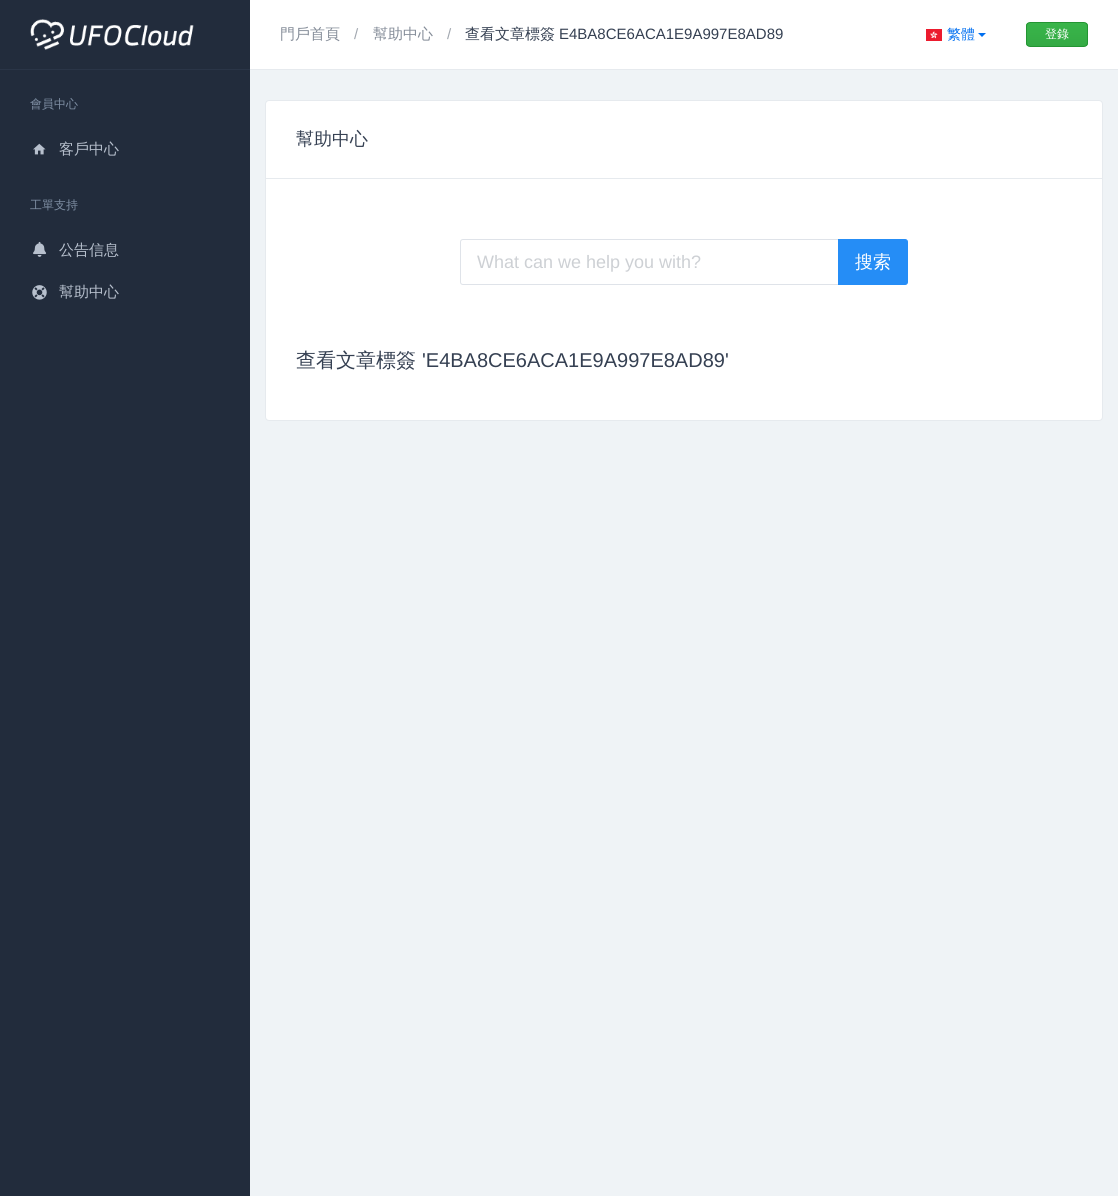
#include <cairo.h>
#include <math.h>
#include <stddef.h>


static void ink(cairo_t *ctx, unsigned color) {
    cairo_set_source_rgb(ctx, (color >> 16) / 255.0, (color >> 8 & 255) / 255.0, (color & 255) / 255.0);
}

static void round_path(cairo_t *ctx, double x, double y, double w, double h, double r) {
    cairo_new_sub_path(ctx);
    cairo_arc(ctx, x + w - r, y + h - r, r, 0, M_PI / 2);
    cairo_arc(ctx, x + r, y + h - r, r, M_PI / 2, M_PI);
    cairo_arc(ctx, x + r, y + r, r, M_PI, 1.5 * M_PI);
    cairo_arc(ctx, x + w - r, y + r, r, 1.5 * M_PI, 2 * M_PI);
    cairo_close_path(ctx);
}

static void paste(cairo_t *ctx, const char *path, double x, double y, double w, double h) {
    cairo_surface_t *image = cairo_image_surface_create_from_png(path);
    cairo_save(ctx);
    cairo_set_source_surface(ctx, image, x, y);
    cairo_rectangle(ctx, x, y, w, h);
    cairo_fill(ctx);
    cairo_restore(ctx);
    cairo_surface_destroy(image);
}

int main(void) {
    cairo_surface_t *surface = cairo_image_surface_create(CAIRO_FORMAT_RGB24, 1118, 1196);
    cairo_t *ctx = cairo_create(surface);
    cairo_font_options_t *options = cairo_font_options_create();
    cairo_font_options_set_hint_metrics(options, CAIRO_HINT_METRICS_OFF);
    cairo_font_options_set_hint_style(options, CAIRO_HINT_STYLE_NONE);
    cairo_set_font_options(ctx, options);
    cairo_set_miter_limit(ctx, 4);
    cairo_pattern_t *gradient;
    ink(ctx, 0xEFF3F6);
    cairo_paint(ctx);
    ink(ctx, 0x222C3C);
    cairo_rectangle(ctx, 0, 0, 250, 1196);
    cairo_fill(ctx);
    ink(ctx, 0x2A3547);
    cairo_rectangle(ctx, 0, 69, 250, 1);
    cairo_fill(ctx);
    paste(ctx, "media/1.png", 30, 19, 164, 31);
    cairo_select_font_face(ctx, "WenQuanYi Zen Hei Medium", CAIRO_FONT_SLANT_NORMAL, CAIRO_FONT_WEIGHT_NORMAL);
    cairo_set_font_size(ctx, 12);
    ink(ctx, 0x7F8FA4);
    cairo_move_to(ctx, 30, 108);
    cairo_show_text(ctx, "會員中心");
    paste(ctx, "media/2.png", 33, 143, 13, 12);
    cairo_set_font_size(ctx, 15);
    ink(ctx, 0xB7C0CD);
    cairo_move_to(ctx, 59, 154);
    cairo_show_text(ctx, "客戶中心");
    cairo_set_font_size(ctx, 12);
    ink(ctx, 0x7F8FA4);
    cairo_move_to(ctx, 30, 209);
    cairo_show_text(ctx, "工單支持");
    paste(ctx, "media/3.png", 33, 241, 14, 16);
    cairo_set_font_size(ctx, 15);
    ink(ctx, 0xB7C0CD);
    cairo_move_to(ctx, 59, 255);
    cairo_show_text(ctx, "公告信息");
    paste(ctx, "media/4.png", 32, 285, 15, 15);
    cairo_move_to(ctx, 59, 297);
    cairo_show_text(ctx, "幫助中心");
    ink(ctx, 0xFFFFFF);
    cairo_rectangle(ctx, 250, 0, 868, 69);
    cairo_fill(ctx);
    ink(ctx, 0xE6EAEE);
    cairo_rectangle(ctx, 250, 69, 868, 1);
    cairo_fill(ctx);
    ink(ctx, 0x848C98);
    cairo_move_to(ctx, 280, 39);
    cairo_show_text(ctx, "門戶首頁");
    cairo_select_font_face(ctx, "Liberation Sans", CAIRO_FONT_SLANT_NORMAL, CAIRO_FONT_WEIGHT_NORMAL);
    ink(ctx, 0xA1A7AF);
    cairo_move_to(ctx, 354, 39);
    cairo_show_text(ctx, "/");
    cairo_select_font_face(ctx, "WenQuanYi Zen Hei Medium", CAIRO_FONT_SLANT_NORMAL, CAIRO_FONT_WEIGHT_NORMAL);
    ink(ctx, 0x848C98);
    cairo_move_to(ctx, 373, 39);
    cairo_show_text(ctx, "幫助中心");
    cairo_select_font_face(ctx, "Liberation Sans", CAIRO_FONT_SLANT_NORMAL, CAIRO_FONT_WEIGHT_NORMAL);
    ink(ctx, 0xA1A7AF);
    cairo_move_to(ctx, 447, 39);
    cairo_show_text(ctx, "/");
    cairo_select_font_face(ctx, "WenQuanYi Zen Hei Medium", CAIRO_FONT_SLANT_NORMAL, CAIRO_FONT_WEIGHT_NORMAL);
    ink(ctx, 0x354052);
    cairo_move_to(ctx, 465, 39);
    cairo_show_text(ctx, "查看文章標簽");
    cairo_select_font_face(ctx, "Liberation Sans", CAIRO_FONT_SLANT_NORMAL, CAIRO_FONT_WEIGHT_NORMAL);
    cairo_move_to(ctx, 559, 39);
    cairo_show_text(ctx, "E4BA8CE6ACA1E9A997E8AD89");
    paste(ctx, "media/5.png", 926, 29, 16, 12);
    cairo_select_font_face(ctx, "WenQuanYi Zen Hei Medium", CAIRO_FONT_SLANT_NORMAL, CAIRO_FONT_WEIGHT_NORMAL);
    cairo_set_font_size(ctx, 14);
    ink(ctx, 0x016FF0);
    cairo_move_to(ctx, 947, 39);
    cairo_show_text(ctx, "繁體");
    cairo_new_path(ctx);
    cairo_move_to(ctx, 978, 33);
    cairo_line_to(ctx, 986, 33);
    cairo_line_to(ctx, 982, 37);
    cairo_close_path(ctx);
    cairo_fill(ctx);
    cairo_save(ctx);
    round_path(ctx, 1026, 22, 62, 25, 4);
    cairo_clip(ctx);
    gradient = cairo_pattern_create_linear(1057, 23, 1057, 46);
    cairo_pattern_add_color_stop_rgba(gradient, 0, 0.224, 0.71, 0.29, 1);
    cairo_pattern_add_color_stop_rgba(gradient, 1, 0.204, 0.667, 0.267, 1);
    cairo_set_source(ctx, gradient);
    cairo_pattern_destroy(gradient);
    cairo_rectangle(ctx, 1026, 23, 62, 23);
    cairo_fill(ctx);
    cairo_restore(ctx);
    round_path(ctx, 1026.5, 22.5, 61, 24, 3.5);
    ink(ctx, 0x249533);
    cairo_set_line_width(ctx, 1);
    cairo_stroke(ctx);
    cairo_set_font_size(ctx, 12);
    ink(ctx, 0xFFFFFF);
    cairo_move_to(ctx, 1045, 38);
    cairo_show_text(ctx, "登錄");
    round_path(ctx, 265.5, 100.5, 837, 320, 3.5);
    cairo_fill_preserve(ctx);
    ink(ctx, 0xE6EAEE);
    cairo_stroke(ctx);
    cairo_rectangle(ctx, 266, 178, 836, 1);
    cairo_fill(ctx);
    cairo_set_font_size(ctx, 18);
    ink(ctx, 0x354052);
    cairo_move_to(ctx, 296, 145);
    cairo_show_text(ctx, "幫助中心");
    cairo_new_path(ctx);
    cairo_move_to(ctx, 463, 239.5);
    cairo_line_to(ctx, 838.5, 239.5);
    cairo_line_to(ctx, 838.5, 284.5);
    cairo_line_to(ctx, 463, 284.5);
    cairo_curve_to(ctx, 461.5, 284.5, 460.5, 283.5, 460.5, 282);
    cairo_line_to(ctx, 460.5, 242);
    cairo_curve_to(ctx, 460.5, 240.5, 461.5, 239.5, 463, 239.5);
    cairo_close_path(ctx);
    ink(ctx, 0xDFE3E9);
    cairo_stroke(ctx);
    cairo_select_font_face(ctx, "Liberation Sans", CAIRO_FONT_SLANT_NORMAL, CAIRO_FONT_WEIGHT_NORMAL);
    ink(ctx, 0xCDD0D4);
    cairo_move_to(ctx, 477, 268);
    cairo_show_text(ctx, "What can we help you with?");
    ink(ctx, 0x258DF6);
    cairo_new_path(ctx);
    cairo_move_to(ctx, 838.5, 239.5);
    cairo_line_to(ctx, 905, 239.5);
    cairo_curve_to(ctx, 906.5, 239.5, 907.5, 240.5, 907.5, 242);
    cairo_line_to(ctx, 907.5, 282);
    cairo_curve_to(ctx, 907.5, 283.5, 906.5, 284.5, 905, 284.5);
    cairo_line_to(ctx, 838.5, 284.5);
    cairo_close_path(ctx);
    cairo_fill_preserve(ctx);
    cairo_stroke(ctx);
    cairo_select_font_face(ctx, "WenQuanYi Zen Hei Medium", CAIRO_FONT_SLANT_NORMAL, CAIRO_FONT_WEIGHT_NORMAL);
    ink(ctx, 0xFFFFFF);
    cairo_move_to(ctx, 855, 268);
    cairo_show_text(ctx, "搜索");
    cairo_set_font_size(ctx, 20);
    ink(ctx, 0x354052);
    cairo_move_to(ctx, 296, 367);
    cairo_show_text(ctx, "查看文章標簽");
    cairo_select_font_face(ctx, "Liberation Sans", CAIRO_FONT_SLANT_NORMAL, CAIRO_FONT_WEIGHT_NORMAL);
    cairo_move_to(ctx, 422, 367);
    cairo_show_text(ctx, "'E4BA8CE6ACA1E9A997E8AD89'");
    cairo_surface_write_to_png(surface, "image.png");
    cairo_font_options_destroy(options);
    cairo_destroy(ctx);
    cairo_surface_destroy(surface);
    return 0;
}
